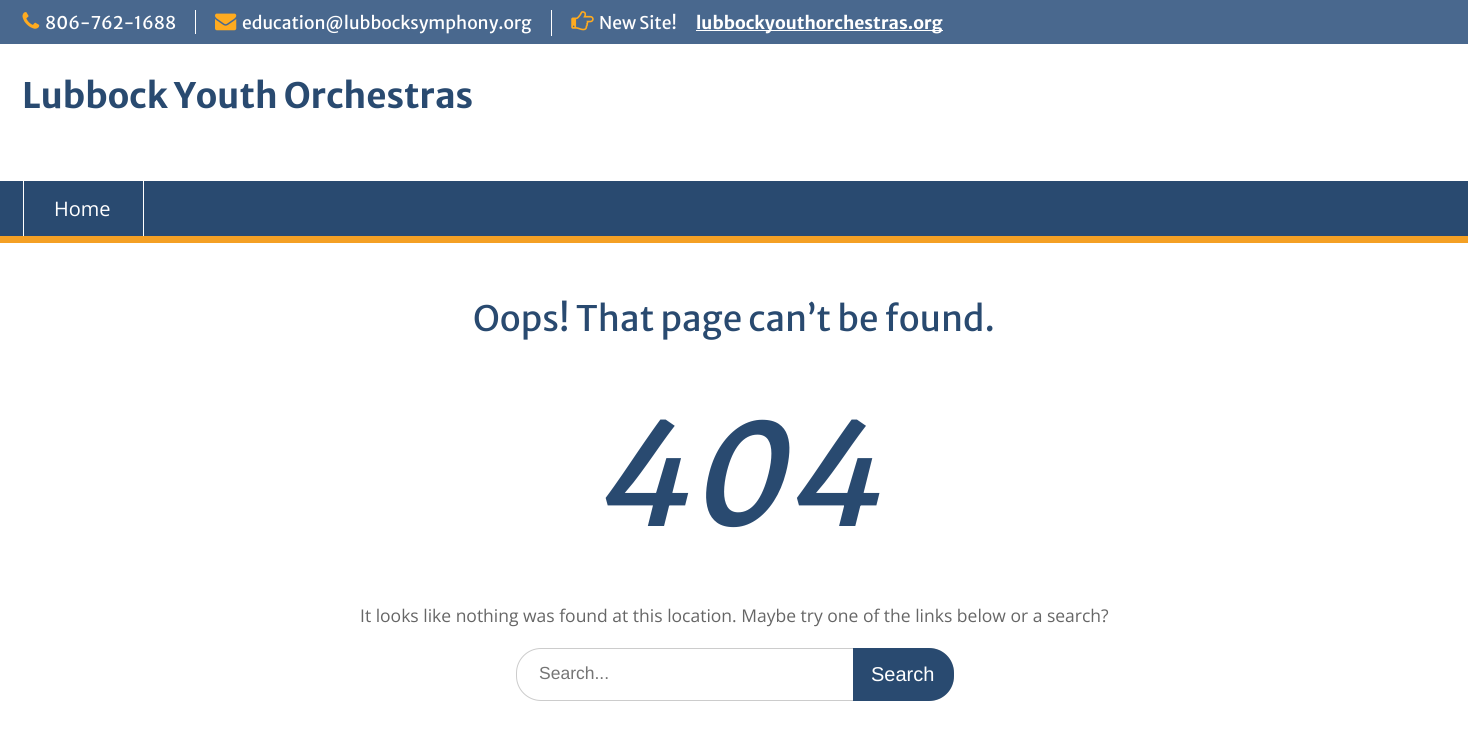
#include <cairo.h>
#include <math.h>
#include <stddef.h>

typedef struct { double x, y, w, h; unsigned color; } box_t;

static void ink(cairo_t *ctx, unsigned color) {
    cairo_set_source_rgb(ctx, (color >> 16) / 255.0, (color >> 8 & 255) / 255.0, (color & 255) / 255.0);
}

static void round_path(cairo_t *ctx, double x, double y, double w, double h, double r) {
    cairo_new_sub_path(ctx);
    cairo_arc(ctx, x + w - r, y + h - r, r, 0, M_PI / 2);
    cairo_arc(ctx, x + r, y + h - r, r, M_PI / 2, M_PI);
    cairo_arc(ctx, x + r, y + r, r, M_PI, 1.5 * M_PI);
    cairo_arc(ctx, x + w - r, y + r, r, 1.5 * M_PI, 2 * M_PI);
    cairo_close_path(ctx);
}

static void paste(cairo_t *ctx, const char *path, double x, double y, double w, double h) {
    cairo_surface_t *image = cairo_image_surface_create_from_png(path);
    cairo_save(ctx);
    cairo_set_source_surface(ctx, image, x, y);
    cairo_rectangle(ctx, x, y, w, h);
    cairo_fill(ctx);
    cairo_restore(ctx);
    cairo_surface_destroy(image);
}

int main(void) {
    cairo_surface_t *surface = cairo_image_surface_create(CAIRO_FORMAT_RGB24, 1468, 731);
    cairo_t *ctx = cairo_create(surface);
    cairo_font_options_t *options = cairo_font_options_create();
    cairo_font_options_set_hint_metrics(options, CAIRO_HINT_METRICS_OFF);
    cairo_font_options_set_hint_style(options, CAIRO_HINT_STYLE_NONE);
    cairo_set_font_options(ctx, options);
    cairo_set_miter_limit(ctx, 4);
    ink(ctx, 0xFFFFFF);
    cairo_paint(ctx);
    ink(ctx, 0x49688E);
    cairo_rectangle(ctx, 0, 0, 1468, 44);
    cairo_fill(ctx);
    paste(ctx, "media/1.png", 22, 12, 18, 17);
    cairo_select_font_face(ctx, "Merriweather Sans", CAIRO_FONT_SLANT_NORMAL, CAIRO_FONT_WEIGHT_NORMAL);
    cairo_set_font_size(ctx, 17.5);
    ink(ctx, 0xFFFFFF);
    cairo_move_to(ctx, 45, 29);
    cairo_show_text(ctx, "806-762-1688");
    cairo_rectangle(ctx, 195, 10, 1, 24);
    cairo_fill(ctx);
    paste(ctx, "media/2.png", 215, 13, 22, 18);
    cairo_move_to(ctx, 242, 29);
    cairo_show_text(ctx, "education@lubbocksymphony.org");
    cairo_rectangle(ctx, 551, 10, 1, 26);
    cairo_fill(ctx);
    paste(ctx, "media/3.png", 571, 11, 23, 20);
    cairo_move_to(ctx, 599, 29);
    cairo_show_text(ctx, "New Site!");
    cairo_rectangle(ctx, 696, 30, 247, 1);
    cairo_fill(ctx);
    cairo_select_font_face(ctx, "Merriweather Sans", CAIRO_FONT_SLANT_NORMAL, CAIRO_FONT_WEIGHT_BOLD);
    cairo_move_to(ctx, 696, 29);
    cairo_show_text(ctx, "lubbockyouthorchestras.org");
    cairo_set_font_size(ctx, 35);
    ink(ctx, 0x294A70);
    cairo_move_to(ctx, 22, 108);
    cairo_show_text(ctx, "Lubbock Youth Orchestras");
    {
        static const box_t items[] = {
            {0, 181, 1468, 55, 0x294A70},
            {0, 236, 1468, 7, 0xF4A024},
            {143, 181, 1, 55, 0xFFFFFF},
            {23, 181, 1, 55, 0xFFFFFF},
        };
        for (size_t i = 0; i < sizeof items / sizeof *items; i++) {
            ink(ctx, items[i].color);
            cairo_rectangle(ctx, items[i].x, items[i].y, items[i].w, items[i].h);
            cairo_fill(ctx);
        }
    }
    cairo_select_font_face(ctx, "Open Sans", CAIRO_FONT_SLANT_NORMAL, CAIRO_FONT_WEIGHT_NORMAL);
    cairo_set_font_size(ctx, 20);
    cairo_move_to(ctx, 54, 216);
    cairo_show_text(ctx, "Home");
    cairo_select_font_face(ctx, "Merriweather Sans", CAIRO_FONT_SLANT_NORMAL, CAIRO_FONT_WEIGHT_NORMAL);
    cairo_set_font_size(ctx, 35);
    ink(ctx, 0x294A70);
    cairo_move_to(ctx, 473, 331);
    cairo_show_text(ctx, "Oops! That page can’t be found.");
    cairo_select_font_face(ctx, "Merriweather Sans", CAIRO_FONT_SLANT_ITALIC, CAIRO_FONT_WEIGHT_NORMAL);
    cairo_set_font_size(ctx, 141);
    cairo_move_to(ctx, 591, 526);
    cairo_show_text(ctx, "404");
    cairo_select_font_face(ctx, "Open Sans", CAIRO_FONT_SLANT_NORMAL, CAIRO_FONT_WEIGHT_NORMAL);
    cairo_set_font_size(ctx, 17.5);
    ink(ctx, 0x666666);
    cairo_move_to(ctx, 360, 622);
    cairo_show_text(ctx, "It looks like nothing was found at this location. Maybe try one of the links below or a search?");
    round_path(ctx, 516.5, 648.5, 437, 52, 24.5);
    ink(ctx, 0xCCCCCC);
    cairo_set_line_width(ctx, 1);
    cairo_stroke(ctx);
    cairo_select_font_face(ctx, "Liberation Sans", CAIRO_FONT_SLANT_NORMAL, CAIRO_FONT_WEIGHT_NORMAL);
    ink(ctx, 0x757575);
    cairo_move_to(ctx, 539, 679);
    cairo_show_text(ctx, "Search...");
    ink(ctx, 0x294A70);
    cairo_new_path(ctx);
    cairo_move_to(ctx, 853, 648);
    cairo_line_to(ctx, 929, 648);
    cairo_curve_to(ctx, 943, 648, 954, 659, 954, 673);
    cairo_line_to(ctx, 954, 676);
    cairo_curve_to(ctx, 954, 690, 943, 701, 929, 701);
    cairo_line_to(ctx, 853, 701);
    cairo_close_path(ctx);
    cairo_fill(ctx);
    cairo_set_font_size(ctx, 20);
    ink(ctx, 0xFFFFFF);
    cairo_move_to(ctx, 871, 681);
    cairo_show_text(ctx, "Search");
    cairo_surface_write_to_png(surface, "image.png");
    cairo_font_options_destroy(options);
    cairo_destroy(ctx);
    cairo_surface_destroy(surface);
    return 0;
}
